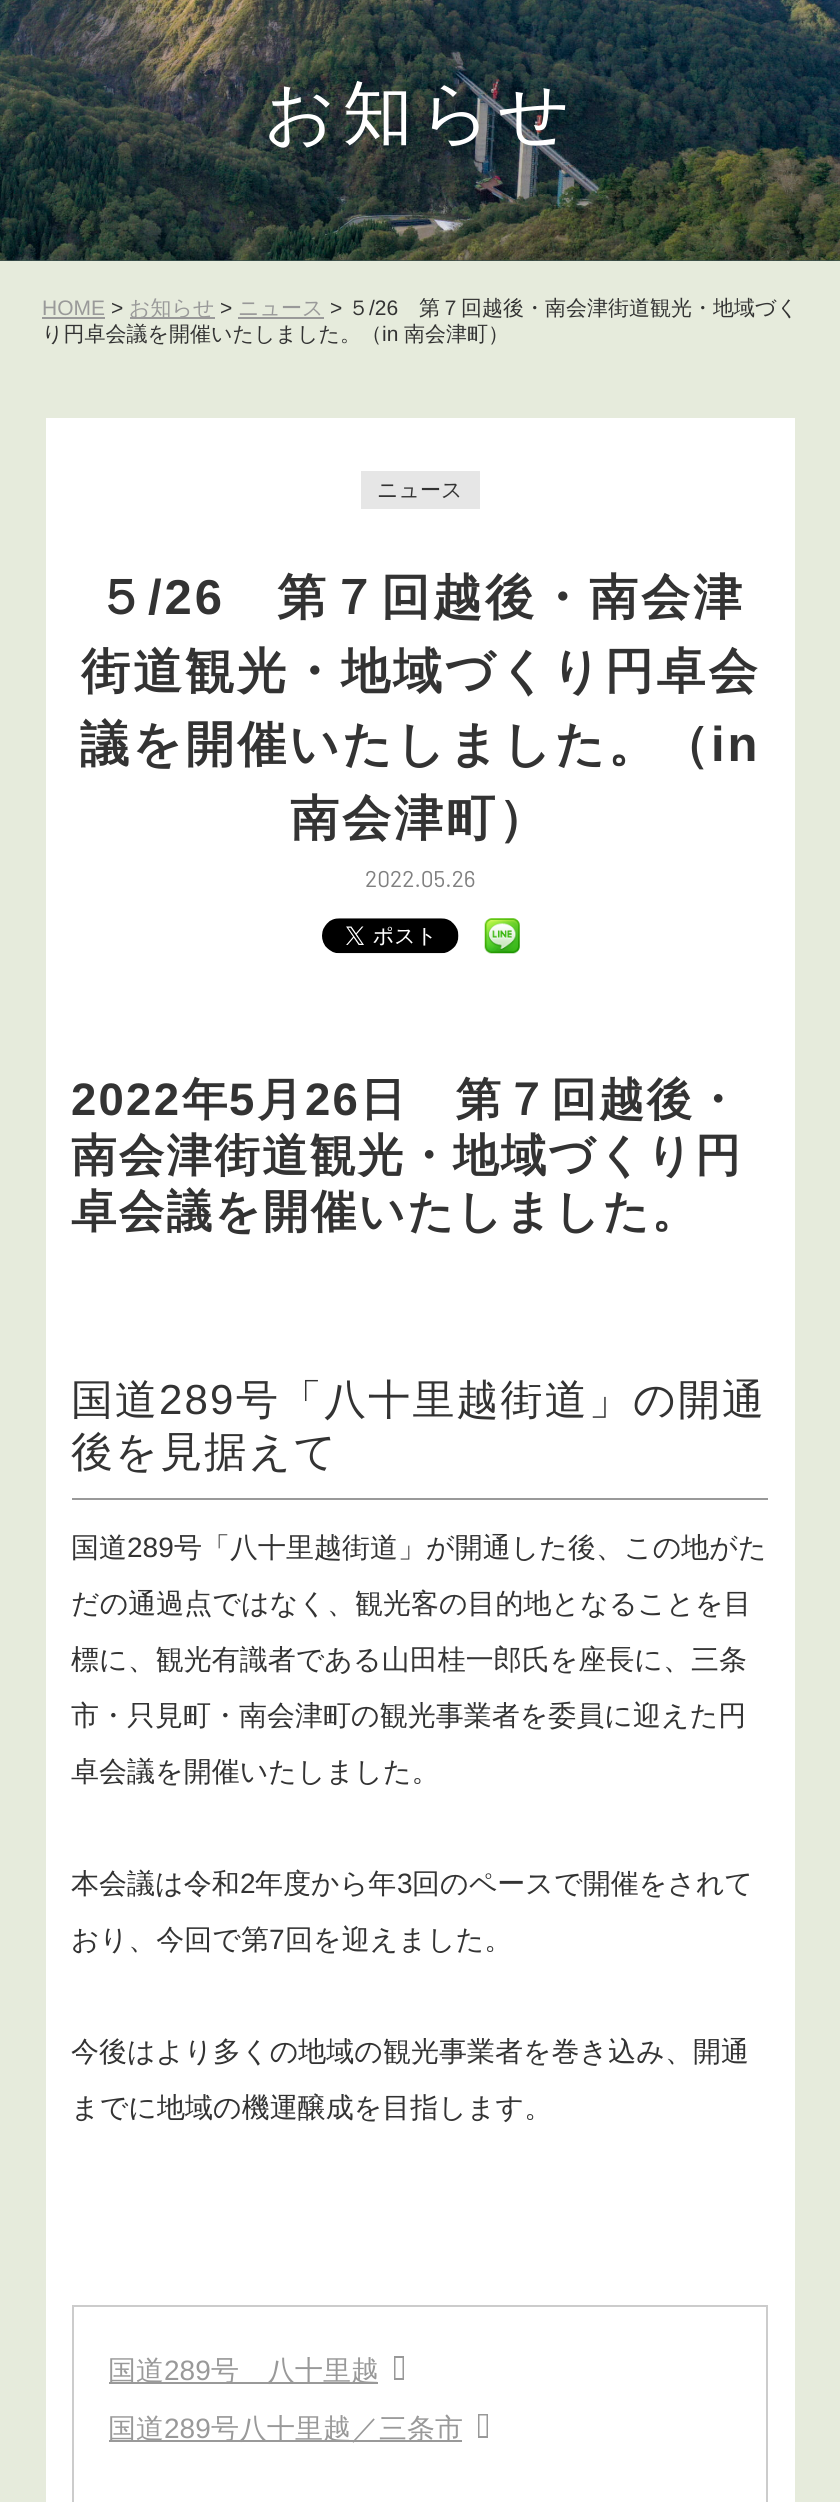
#include <cairo.h>
#include <math.h>
#include <stddef.h>

typedef struct { double x, y; const char *s; } line_t;

static void ink(cairo_t *ctx, unsigned color) {
    cairo_set_source_rgb(ctx, (color >> 16) / 255.0, (color >> 8 & 255) / 255.0, (color & 255) / 255.0);
}

static void write_spaced(cairo_t *ctx, double x, double y, const char *s, double letter, double word) {
    cairo_move_to(ctx, x, y);
    while (*s) {
        char ch[5] = {0};
        int n = 0;
        do ch[n++] = *s++; while ((*s & 0xC0) == 0x80);
        cairo_show_text(ctx, ch);
        cairo_rel_move_to(ctx, letter + word * (*ch == ' '), 0);
    }
}

static void paste(cairo_t *ctx, const char *path, double x, double y, double w, double h) {
    cairo_surface_t *image = cairo_image_surface_create_from_png(path);
    cairo_save(ctx);
    cairo_set_source_surface(ctx, image, x, y);
    cairo_rectangle(ctx, x, y, w, h);
    cairo_fill(ctx);
    cairo_restore(ctx);
    cairo_surface_destroy(image);
}

int main(void) {
    cairo_surface_t *surface = cairo_image_surface_create(CAIRO_FORMAT_RGB24, 840, 2502);
    cairo_t *ctx = cairo_create(surface);
    cairo_font_options_t *options = cairo_font_options_create();
    cairo_font_options_set_hint_metrics(options, CAIRO_HINT_METRICS_OFF);
    cairo_font_options_set_hint_style(options, CAIRO_HINT_STYLE_NONE);
    cairo_set_font_options(ctx, options);
    cairo_set_miter_limit(ctx, 4);
    ink(ctx, 0x3E524F);
    cairo_paint(ctx);
    paste(ctx, "media/1.png", 0, 0, 840, 261);
    cairo_select_font_face(ctx, "WenQuanYi Zen Hei Medium", CAIRO_FONT_SLANT_NORMAL, CAIRO_FONT_WEIGHT_NORMAL);
    cairo_set_font_size(ctx, 70);
    ink(ctx, 0xFFFFFF);
    write_spaced(ctx, 264, 137, "お知らせ", 7, 0);
    ink(ctx, 0xE6EBDC);
    cairo_rectangle(ctx, 0, 261, 840, 2241);
    cairo_fill(ctx);
    cairo_select_font_face(ctx, "Liberation Sans", CAIRO_FONT_SLANT_NORMAL, CAIRO_FONT_WEIGHT_NORMAL);
    cairo_set_font_size(ctx, 21);
    ink(ctx, 0x999999);
    cairo_move_to(ctx, 42, 315);
    cairo_show_text(ctx, "HOME");
    cairo_rectangle(ctx, 42, 317, 63, 2);
    cairo_fill(ctx);
    ink(ctx, 0x333333);
    cairo_move_to(ctx, 111, 315);
    cairo_show_text(ctx, ">");
    ink(ctx, 0x999999);
    cairo_rectangle(ctx, 130, 317, 85, 2);
    cairo_fill(ctx);
    cairo_select_font_face(ctx, "WenQuanYi Zen Hei Medium", CAIRO_FONT_SLANT_NORMAL, CAIRO_FONT_WEIGHT_NORMAL);
    cairo_move_to(ctx, 129, 315);
    cairo_show_text(ctx, "お知らせ");
    cairo_select_font_face(ctx, "Liberation Sans", CAIRO_FONT_SLANT_NORMAL, CAIRO_FONT_WEIGHT_NORMAL);
    ink(ctx, 0x333333);
    cairo_move_to(ctx, 220, 315);
    cairo_show_text(ctx, ">");
    cairo_select_font_face(ctx, "WenQuanYi Zen Hei Medium", CAIRO_FONT_SLANT_NORMAL, CAIRO_FONT_WEIGHT_NORMAL);
    ink(ctx, 0x999999);
    cairo_move_to(ctx, 238, 315);
    cairo_show_text(ctx, "ニュース");
    cairo_rectangle(ctx, 238, 317, 86, 2);
    cairo_fill(ctx);
    cairo_select_font_face(ctx, "Liberation Sans", CAIRO_FONT_SLANT_NORMAL, CAIRO_FONT_WEIGHT_NORMAL);
    ink(ctx, 0x333333);
    cairo_move_to(ctx, 330, 315);
    cairo_show_text(ctx, ">");
    cairo_select_font_face(ctx, "WenQuanYi Zen Hei Medium", CAIRO_FONT_SLANT_NORMAL, CAIRO_FONT_WEIGHT_NORMAL);
    cairo_move_to(ctx, 348, 315);
    cairo_show_text(ctx, "５");
    cairo_select_font_face(ctx, "Liberation Sans", CAIRO_FONT_SLANT_NORMAL, CAIRO_FONT_WEIGHT_NORMAL);
    cairo_move_to(ctx, 369, 315);
    cairo_show_text(ctx, "/26");
    cairo_select_font_face(ctx, "WenQuanYi Zen Hei Medium", CAIRO_FONT_SLANT_NORMAL, CAIRO_FONT_WEIGHT_NORMAL);
    cairo_move_to(ctx, 419, 315);
    cairo_show_text(ctx, "第７回越後・南会津街道観光・地域づく");
    cairo_move_to(ctx, 42, 341);
    cairo_show_text(ctx, "り円卓会議を開催いたしました。（");
    cairo_select_font_face(ctx, "Liberation Sans", CAIRO_FONT_SLANT_NORMAL, CAIRO_FONT_WEIGHT_NORMAL);
    cairo_move_to(ctx, 382, 341);
    cairo_show_text(ctx, "in");
    cairo_select_font_face(ctx, "WenQuanYi Zen Hei Medium", CAIRO_FONT_SLANT_NORMAL, CAIRO_FONT_WEIGHT_NORMAL);
    cairo_move_to(ctx, 404, 341);
    cairo_show_text(ctx, "南会津町）");
    ink(ctx, 0xFFFFFF);
    cairo_rectangle(ctx, 46, 418, 749, 2084);
    cairo_fill(ctx);
    ink(ctx, 0xE6E6E6);
    cairo_rectangle(ctx, 361, 471, 119, 38);
    cairo_fill(ctx);
    ink(ctx, 0x333333);
    cairo_move_to(ctx, 377, 497);
    cairo_show_text(ctx, "ニュース");
    cairo_select_font_face(ctx, "WenQuanYi Zen Hei", CAIRO_FONT_SLANT_NORMAL, CAIRO_FONT_WEIGHT_BOLD);
    cairo_set_font_size(ctx, 49);
    write_spaced(ctx, 96, 614, "５", 3, 0);
    cairo_select_font_face(ctx, "Liberation Sans", CAIRO_FONT_SLANT_NORMAL, CAIRO_FONT_WEIGHT_BOLD);
    write_spaced(ctx, 148, 614, "/26", 3, 0);
    cairo_select_font_face(ctx, "WenQuanYi Zen Hei", CAIRO_FONT_SLANT_NORMAL, CAIRO_FONT_WEIGHT_BOLD);
    {
        static const line_t items[] = {
            {277, 614, "第７回越後・南会津"},
            {81, 688, "街道観光・地域づくり円卓会"},
            {80, 761, "議を開催いたしました。（"},
        };
        for (size_t i = 0; i < sizeof items / sizeof *items; i++) {
            write_spaced(ctx, items[i].x, items[i].y, items[i].s, 3, 0);
        }
    }
    cairo_select_font_face(ctx, "Liberation Sans", CAIRO_FONT_SLANT_NORMAL, CAIRO_FONT_WEIGHT_BOLD);
    write_spaced(ctx, 711, 761, "in", 3, 0);
    cairo_select_font_face(ctx, "WenQuanYi Zen Hei", CAIRO_FONT_SLANT_NORMAL, CAIRO_FONT_WEIGHT_BOLD);
    write_spaced(ctx, 290, 835, "南会津町）", 3, 0);
    cairo_select_font_face(ctx, "Barlow", CAIRO_FONT_SLANT_NORMAL, CAIRO_FONT_WEIGHT_NORMAL);
    cairo_set_font_size(ctx, 22.75);
    ink(ctx, 0x808080);
    cairo_move_to(ctx, 365, 887);
    cairo_show_text(ctx, "2022.05.26");
    paste(ctx, "media/2.png", 322, 918, 137, 36);
    paste(ctx, "media/3.png", 484, 918, 36, 36);
    cairo_select_font_face(ctx, "Liberation Sans", CAIRO_FONT_SLANT_NORMAL, CAIRO_FONT_WEIGHT_BOLD);
    cairo_set_font_size(ctx, 45.5);
    ink(ctx, 0x333333);
    write_spaced(ctx, 71, 1115, "2022", 2.25, 0);
    cairo_select_font_face(ctx, "WenQuanYi Zen Hei", CAIRO_FONT_SLANT_NORMAL, CAIRO_FONT_WEIGHT_BOLD);
    write_spaced(ctx, 182, 1115, "年", 2.25, 0);
    cairo_select_font_face(ctx, "Liberation Sans", CAIRO_FONT_SLANT_NORMAL, CAIRO_FONT_WEIGHT_BOLD);
    write_spaced(ctx, 229, 1115, "5", 2.25, 0);
    cairo_select_font_face(ctx, "WenQuanYi Zen Hei", CAIRO_FONT_SLANT_NORMAL, CAIRO_FONT_WEIGHT_BOLD);
    write_spaced(ctx, 257, 1115, "月", 2.25, 0);
    cairo_select_font_face(ctx, "Liberation Sans", CAIRO_FONT_SLANT_NORMAL, CAIRO_FONT_WEIGHT_BOLD);
    write_spaced(ctx, 305, 1115, "26", 2.25, 0);
    cairo_select_font_face(ctx, "WenQuanYi Zen Hei", CAIRO_FONT_SLANT_NORMAL, CAIRO_FONT_WEIGHT_BOLD);
    {
        static const line_t items[] = {
            {360, 1115, "日　第７回越後・"},
            {71, 1171, "南会津街道観光・地域づくり円"},
            {71, 1227, "卓会議を開催いたしました。"},
        };
        for (size_t i = 0; i < sizeof items / sizeof *items; i++) {
            write_spaced(ctx, items[i].x, items[i].y, items[i].s, 2.25, 0);
        }
    }
    ink(ctx, 0x999999);
    cairo_rectangle(ctx, 72, 1498, 696, 2);
    cairo_fill(ctx);
    cairo_select_font_face(ctx, "WenQuanYi Zen Hei Medium", CAIRO_FONT_SLANT_NORMAL, CAIRO_FONT_WEIGHT_NORMAL);
    cairo_set_font_size(ctx, 42);
    ink(ctx, 0x333333);
    write_spaced(ctx, 71, 1414, "国道", 2.1, 0);
    cairo_select_font_face(ctx, "Liberation Sans", CAIRO_FONT_SLANT_NORMAL, CAIRO_FONT_WEIGHT_NORMAL);
    write_spaced(ctx, 159, 1414, "289", 2.1, 0);
    cairo_select_font_face(ctx, "WenQuanYi Zen Hei Medium", CAIRO_FONT_SLANT_NORMAL, CAIRO_FONT_WEIGHT_NORMAL);
    write_spaced(ctx, 236, 1414, "号「八十里越街道」の開通", 2.1, 0);
    write_spaced(ctx, 71, 1466, "後を見据えて", 2.1, 0);
    cairo_set_font_size(ctx, 28);
    cairo_move_to(ctx, 71, 1557);
    cairo_show_text(ctx, "国道");
    cairo_select_font_face(ctx, "Liberation Sans", CAIRO_FONT_SLANT_NORMAL, CAIRO_FONT_WEIGHT_NORMAL);
    cairo_move_to(ctx, 127, 1557);
    cairo_show_text(ctx, "289");
    cairo_select_font_face(ctx, "WenQuanYi Zen Hei Medium", CAIRO_FONT_SLANT_NORMAL, CAIRO_FONT_WEIGHT_NORMAL);
    {
        static const line_t items[] = {
            {174, 1557, "号「八十里越街道」が開通した後、この地がた"},
            {71, 1613, "だの通過点ではなく、観光客の目的地となることを目"},
            {71, 1669, "標に、観光有識者である山田桂一郎氏を座長に、三条"},
            {71, 1725, "市・只見町・南会津町の観光事業者を委員に迎えた円"},
            {71, 1781, "卓会議を開催いたしました。"},
            {71, 1893, "本会議は令和"},
        };
        for (size_t i = 0; i < sizeof items / sizeof *items; i++) {
            cairo_move_to(ctx, items[i].x, items[i].y);
            cairo_show_text(ctx, items[i].s);
        }
    }
    cairo_select_font_face(ctx, "Liberation Sans", CAIRO_FONT_SLANT_NORMAL, CAIRO_FONT_WEIGHT_NORMAL);
    cairo_move_to(ctx, 240, 1893);
    cairo_show_text(ctx, "2");
    cairo_select_font_face(ctx, "WenQuanYi Zen Hei Medium", CAIRO_FONT_SLANT_NORMAL, CAIRO_FONT_WEIGHT_NORMAL);
    cairo_move_to(ctx, 255, 1893);
    cairo_show_text(ctx, "年度から年");
    cairo_select_font_face(ctx, "Liberation Sans", CAIRO_FONT_SLANT_NORMAL, CAIRO_FONT_WEIGHT_NORMAL);
    cairo_move_to(ctx, 397, 1893);
    cairo_show_text(ctx, "3");
    cairo_select_font_face(ctx, "WenQuanYi Zen Hei Medium", CAIRO_FONT_SLANT_NORMAL, CAIRO_FONT_WEIGHT_NORMAL);
    cairo_move_to(ctx, 412, 1893);
    cairo_show_text(ctx, "回のペースで開催をされて");
    cairo_move_to(ctx, 71, 1949);
    cairo_show_text(ctx, "おり、今回で第");
    cairo_select_font_face(ctx, "Liberation Sans", CAIRO_FONT_SLANT_NORMAL, CAIRO_FONT_WEIGHT_NORMAL);
    cairo_move_to(ctx, 269, 1949);
    cairo_show_text(ctx, "7");
    cairo_select_font_face(ctx, "WenQuanYi Zen Hei Medium", CAIRO_FONT_SLANT_NORMAL, CAIRO_FONT_WEIGHT_NORMAL);
    {
        static const line_t items[] = {
            {285, 1949, "回を迎えました。"},
            {71, 2061, "今後はより多くの地域の観光事業者を巻き込み、開通"},
            {71, 2117, "までに地域の機運醸成を目指します。"},
        };
        for (size_t i = 0; i < sizeof items / sizeof *items; i++) {
            cairo_move_to(ctx, items[i].x, items[i].y);
            cairo_show_text(ctx, items[i].s);
        }
    }
    cairo_rectangle(ctx, 73, 2306, 694, 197);
    ink(ctx, 0xCCCCCC);
    cairo_stroke(ctx);
    ink(ctx, 0x999999);
    cairo_rectangle(ctx, 109, 2382, 269, 2);
    cairo_fill(ctx);
    cairo_move_to(ctx, 108, 2380);
    cairo_show_text(ctx, "国道");
    cairo_select_font_face(ctx, "Liberation Sans", CAIRO_FONT_SLANT_NORMAL, CAIRO_FONT_WEIGHT_NORMAL);
    cairo_move_to(ctx, 164, 2380);
    cairo_show_text(ctx, "289");
    cairo_select_font_face(ctx, "WenQuanYi Zen Hei Medium", CAIRO_FONT_SLANT_NORMAL, CAIRO_FONT_WEIGHT_NORMAL);
    cairo_move_to(ctx, 211, 2380);
    cairo_show_text(ctx, "号　八十里越");
    cairo_new_path(ctx);
    cairo_move_to(ctx, 395.5, 2378);
    cairo_line_to(ctx, 402.5, 2378);
    cairo_line_to(ctx, 402.5, 2358);
    cairo_line_to(ctx, 395.5, 2358);
    cairo_close_path(ctx);
    cairo_move_to(ctx, 394, 2380);
    cairo_line_to(ctx, 394, 2356);
    cairo_line_to(ctx, 404, 2356);
    cairo_line_to(ctx, 404, 2380);
    cairo_close_path(ctx);
    cairo_fill(ctx);
    cairo_rectangle(ctx, 109, 2440, 353, 2);
    cairo_fill(ctx);
    cairo_move_to(ctx, 108, 2438);
    cairo_show_text(ctx, "国道");
    cairo_select_font_face(ctx, "Liberation Sans", CAIRO_FONT_SLANT_NORMAL, CAIRO_FONT_WEIGHT_NORMAL);
    cairo_move_to(ctx, 164, 2438);
    cairo_show_text(ctx, "289");
    cairo_select_font_face(ctx, "WenQuanYi Zen Hei Medium", CAIRO_FONT_SLANT_NORMAL, CAIRO_FONT_WEIGHT_NORMAL);
    cairo_move_to(ctx, 211, 2438);
    cairo_show_text(ctx, "号八十里越／三条市");
    cairo_new_path(ctx);
    cairo_move_to(ctx, 479.5, 2436);
    cairo_line_to(ctx, 486.5, 2436);
    cairo_line_to(ctx, 486.5, 2415.5);
    cairo_line_to(ctx, 479.5, 2415.5);
    cairo_close_path(ctx);
    cairo_move_to(ctx, 478, 2438);
    cairo_line_to(ctx, 478, 2414);
    cairo_line_to(ctx, 488, 2414);
    cairo_line_to(ctx, 488, 2438);
    cairo_close_path(ctx);
    cairo_fill(ctx);
    cairo_surface_write_to_png(surface, "image.png");
    cairo_font_options_destroy(options);
    cairo_destroy(ctx);
    cairo_surface_destroy(surface);
    return 0;
}
